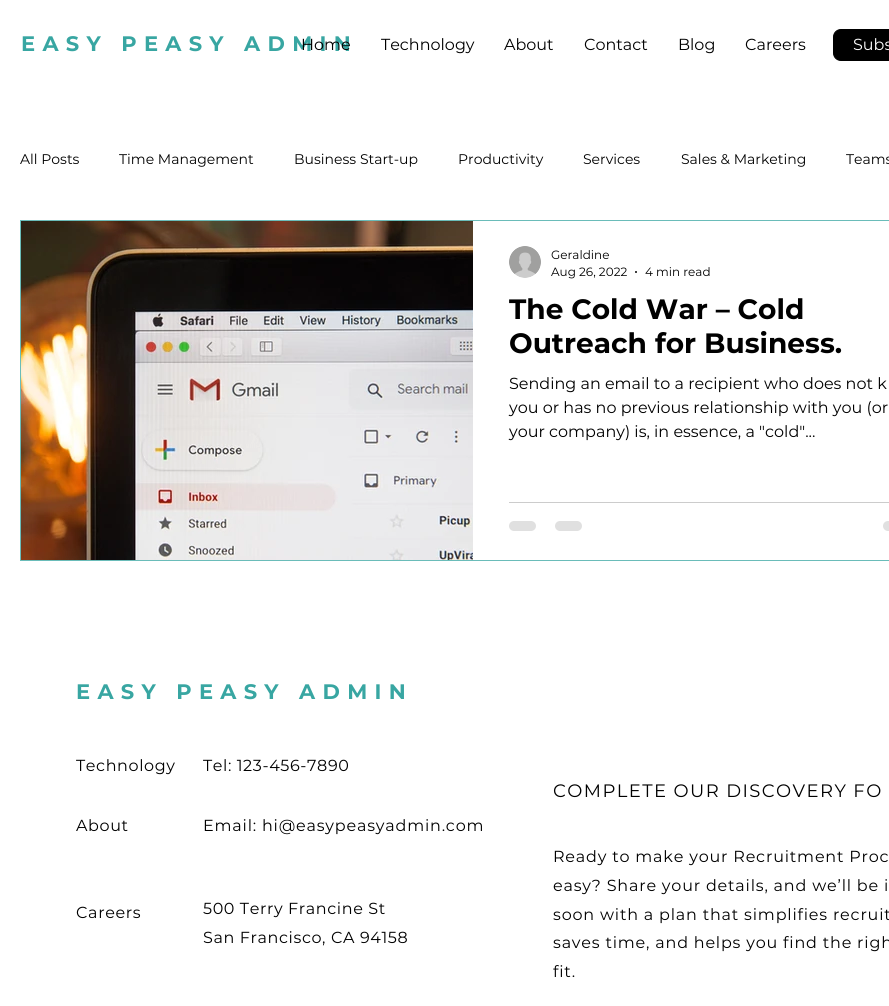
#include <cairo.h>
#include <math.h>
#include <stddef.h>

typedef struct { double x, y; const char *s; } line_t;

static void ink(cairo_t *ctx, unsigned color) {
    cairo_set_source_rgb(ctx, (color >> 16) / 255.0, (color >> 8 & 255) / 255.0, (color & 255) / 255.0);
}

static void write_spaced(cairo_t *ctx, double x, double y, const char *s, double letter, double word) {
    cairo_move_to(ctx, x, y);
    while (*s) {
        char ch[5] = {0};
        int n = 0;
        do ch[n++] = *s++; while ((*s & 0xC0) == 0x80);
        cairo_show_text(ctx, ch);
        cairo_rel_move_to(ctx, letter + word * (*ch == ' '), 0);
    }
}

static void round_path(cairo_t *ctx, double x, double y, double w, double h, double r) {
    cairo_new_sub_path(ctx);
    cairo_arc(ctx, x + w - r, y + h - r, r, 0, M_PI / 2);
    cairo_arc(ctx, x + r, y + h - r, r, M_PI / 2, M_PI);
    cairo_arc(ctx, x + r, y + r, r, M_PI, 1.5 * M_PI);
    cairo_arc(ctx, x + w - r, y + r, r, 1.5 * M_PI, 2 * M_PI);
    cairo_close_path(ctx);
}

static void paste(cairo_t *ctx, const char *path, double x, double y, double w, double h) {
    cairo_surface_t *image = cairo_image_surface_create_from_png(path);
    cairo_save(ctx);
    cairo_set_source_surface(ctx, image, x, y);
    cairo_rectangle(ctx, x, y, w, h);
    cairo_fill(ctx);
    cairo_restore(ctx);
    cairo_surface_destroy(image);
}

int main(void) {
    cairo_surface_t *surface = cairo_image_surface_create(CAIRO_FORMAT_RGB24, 889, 1006);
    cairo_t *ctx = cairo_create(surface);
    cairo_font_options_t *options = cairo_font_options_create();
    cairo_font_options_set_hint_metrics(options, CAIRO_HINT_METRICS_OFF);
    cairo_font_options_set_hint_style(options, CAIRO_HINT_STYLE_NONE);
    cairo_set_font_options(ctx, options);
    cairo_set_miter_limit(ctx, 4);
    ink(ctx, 0xFFFFFF);
    cairo_paint(ctx);
    cairo_select_font_face(ctx, "Montserrat", CAIRO_FONT_SLANT_NORMAL, CAIRO_FONT_WEIGHT_BOLD);
    cairo_set_font_size(ctx, 21);
    ink(ctx, 0x38A6A2);
    write_spaced(ctx, 21, 51, "EASY PEASY ADMIN", 7.3, 0);
    cairo_select_font_face(ctx, "Montserrat", CAIRO_FONT_SLANT_NORMAL, CAIRO_FONT_WEIGHT_NORMAL);
    cairo_set_font_size(ctx, 16);
    ink(ctx, 0x000000);
    {
        static const line_t items[] = {
            {301, 50, "Home"},
            {381, 50, "Technology"},
            {504, 50, "About"},
            {584, 50, "Contact"},
            {678, 50, "Blog"},
            {745, 50, "Careers"},
        };
        for (size_t i = 0; i < sizeof items / sizeof *items; i++) {
            cairo_move_to(ctx, items[i].x, items[i].y);
            cairo_show_text(ctx, items[i].s);
        }
    }
    round_path(ctx, 833.5, 29.5, 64, 31, 7.5);
    cairo_fill_preserve(ctx);
    cairo_set_line_width(ctx, 1);
    cairo_stroke(ctx);
    ink(ctx, 0xFFFFFF);
    cairo_move_to(ctx, 853, 50);
    cairo_show_text(ctx, "Subs");
    cairo_set_font_size(ctx, 14);
    ink(ctx, 0x000000);
    {
        static const line_t items[] = {
            {20, 164, "All Posts"},
            {119, 164, "Time Management"},
            {294, 164, "Business Start-up"},
            {458, 164, "Productivity"},
            {583, 164, "Services"},
            {681, 164, "Sales & Marketing"},
            {846, 164, "Teams"},
        };
        for (size_t i = 0; i < sizeof items / sizeof *items; i++) {
            cairo_move_to(ctx, items[i].x, items[i].y);
            cairo_show_text(ctx, items[i].s);
        }
    }
    cairo_rectangle(ctx, 20.5, 220.5, 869, 340);
    ink(ctx, 0x6ABCB9);
    cairo_stroke(ctx);
    paste(ctx, "media/1.png", 21, 221, 452, 339);
    paste(ctx, "media/2.png", 509, 246, 32, 32);
    cairo_set_font_size(ctx, 12);
    ink(ctx, 0x000000);
    cairo_move_to(ctx, 551, 259);
    cairo_show_text(ctx, "Geraldine");
    cairo_move_to(ctx, 551, 276);
    cairo_show_text(ctx, "Aug 26, 2022");
    cairo_new_path(ctx);
    cairo_arc(ctx, 636, 272, 1, 0, 2 * M_PI);
    cairo_fill(ctx);
    cairo_move_to(ctx, 645, 276);
    cairo_show_text(ctx, "4 min read");
    cairo_select_font_face(ctx, "Montserrat", CAIRO_FONT_SLANT_NORMAL, CAIRO_FONT_WEIGHT_BOLD);
    cairo_set_font_size(ctx, 28);
    cairo_move_to(ctx, 509, 319);
    cairo_show_text(ctx, "The Cold War – Cold");
    cairo_move_to(ctx, 509, 353);
    cairo_show_text(ctx, "Outreach for Business.");
    cairo_select_font_face(ctx, "Montserrat", CAIRO_FONT_SLANT_NORMAL, CAIRO_FONT_WEIGHT_NORMAL);
    cairo_set_font_size(ctx, 16);
    {
        static const line_t items[] = {
            {509, 389, "Sending an email to a recipient who does not k"},
            {509, 413, "you or has no previous relationship with you (or"},
            {509, 437, "your company) is, in essence, a \"cold\"..."},
        };
        for (size_t i = 0; i < sizeof items / sizeof *items; i++) {
            cairo_move_to(ctx, items[i].x, items[i].y);
            cairo_show_text(ctx, items[i].s);
        }
    }
    ink(ctx, 0xCCCCCC);
    cairo_rectangle(ctx, 509, 502, 380, 1);
    cairo_fill(ctx);
    ink(ctx, 0xE0E0E0);
    round_path(ctx, 509, 521, 27, 10, 5);
    cairo_fill(ctx);
    round_path(ctx, 555, 521, 27, 10, 5);
    cairo_fill(ctx);
    round_path(ctx, 883, 521, 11, 10, 5);
    cairo_fill(ctx);
    cairo_select_font_face(ctx, "Montserrat", CAIRO_FONT_SLANT_NORMAL, CAIRO_FONT_WEIGHT_BOLD);
    cairo_set_font_size(ctx, 21);
    ink(ctx, 0x38A6A2);
    write_spaced(ctx, 76, 699, "EASY PEASY ADMIN", 7.3, 0);
    cairo_select_font_face(ctx, "Montserrat", CAIRO_FONT_SLANT_NORMAL, CAIRO_FONT_WEIGHT_NORMAL);
    cairo_set_font_size(ctx, 16);
    ink(ctx, 0x000000);
    {
        static const line_t items[] = {
            {76, 771, "Technology"},
            {203, 771, "Tel: 123-456-7890"},
            {76, 831, "About"},
        };
        for (size_t i = 0; i < sizeof items / sizeof *items; i++) {
            write_spaced(ctx, items[i].x, items[i].y, items[i].s, 0.6, 0);
        }
    }
    write_spaced(ctx, 203, 831, "Email: hi@easypeasyadmin.com", 0.8, 0);
    {
        static const line_t items[] = {
            {76, 918, "Careers"},
            {203, 914, "500 Terry Francine St"},
            {203, 943, "San Francisco, CA 94158"},
        };
        for (size_t i = 0; i < sizeof items / sizeof *items; i++) {
            write_spaced(ctx, items[i].x, items[i].y, items[i].s, 0.6, 0);
        }
    }
    cairo_set_font_size(ctx, 18);
    write_spaced(ctx, 553, 797, "COMPLETE OUR DISCOVERY FO", 1.4, 0);
    cairo_set_font_size(ctx, 16);
    {
        static const line_t items[] = {
            {553, 862, "Ready to make your Recruitment Proc"},
            {553, 891, "easy? Share your details, and we’ll be i"},
            {553, 920, "soon with a plan that simplifies recruit"},
            {553, 948, "saves time, and helps you find the righ"},
            {553, 977, "fit."},
        };
        for (size_t i = 0; i < sizeof items / sizeof *items; i++) {
            write_spaced(ctx, items[i].x, items[i].y, items[i].s, 0.8, 0);
        }
    }
    cairo_surface_write_to_png(surface, "image.png");
    cairo_font_options_destroy(options);
    cairo_destroy(ctx);
    cairo_surface_destroy(surface);
    return 0;
}
